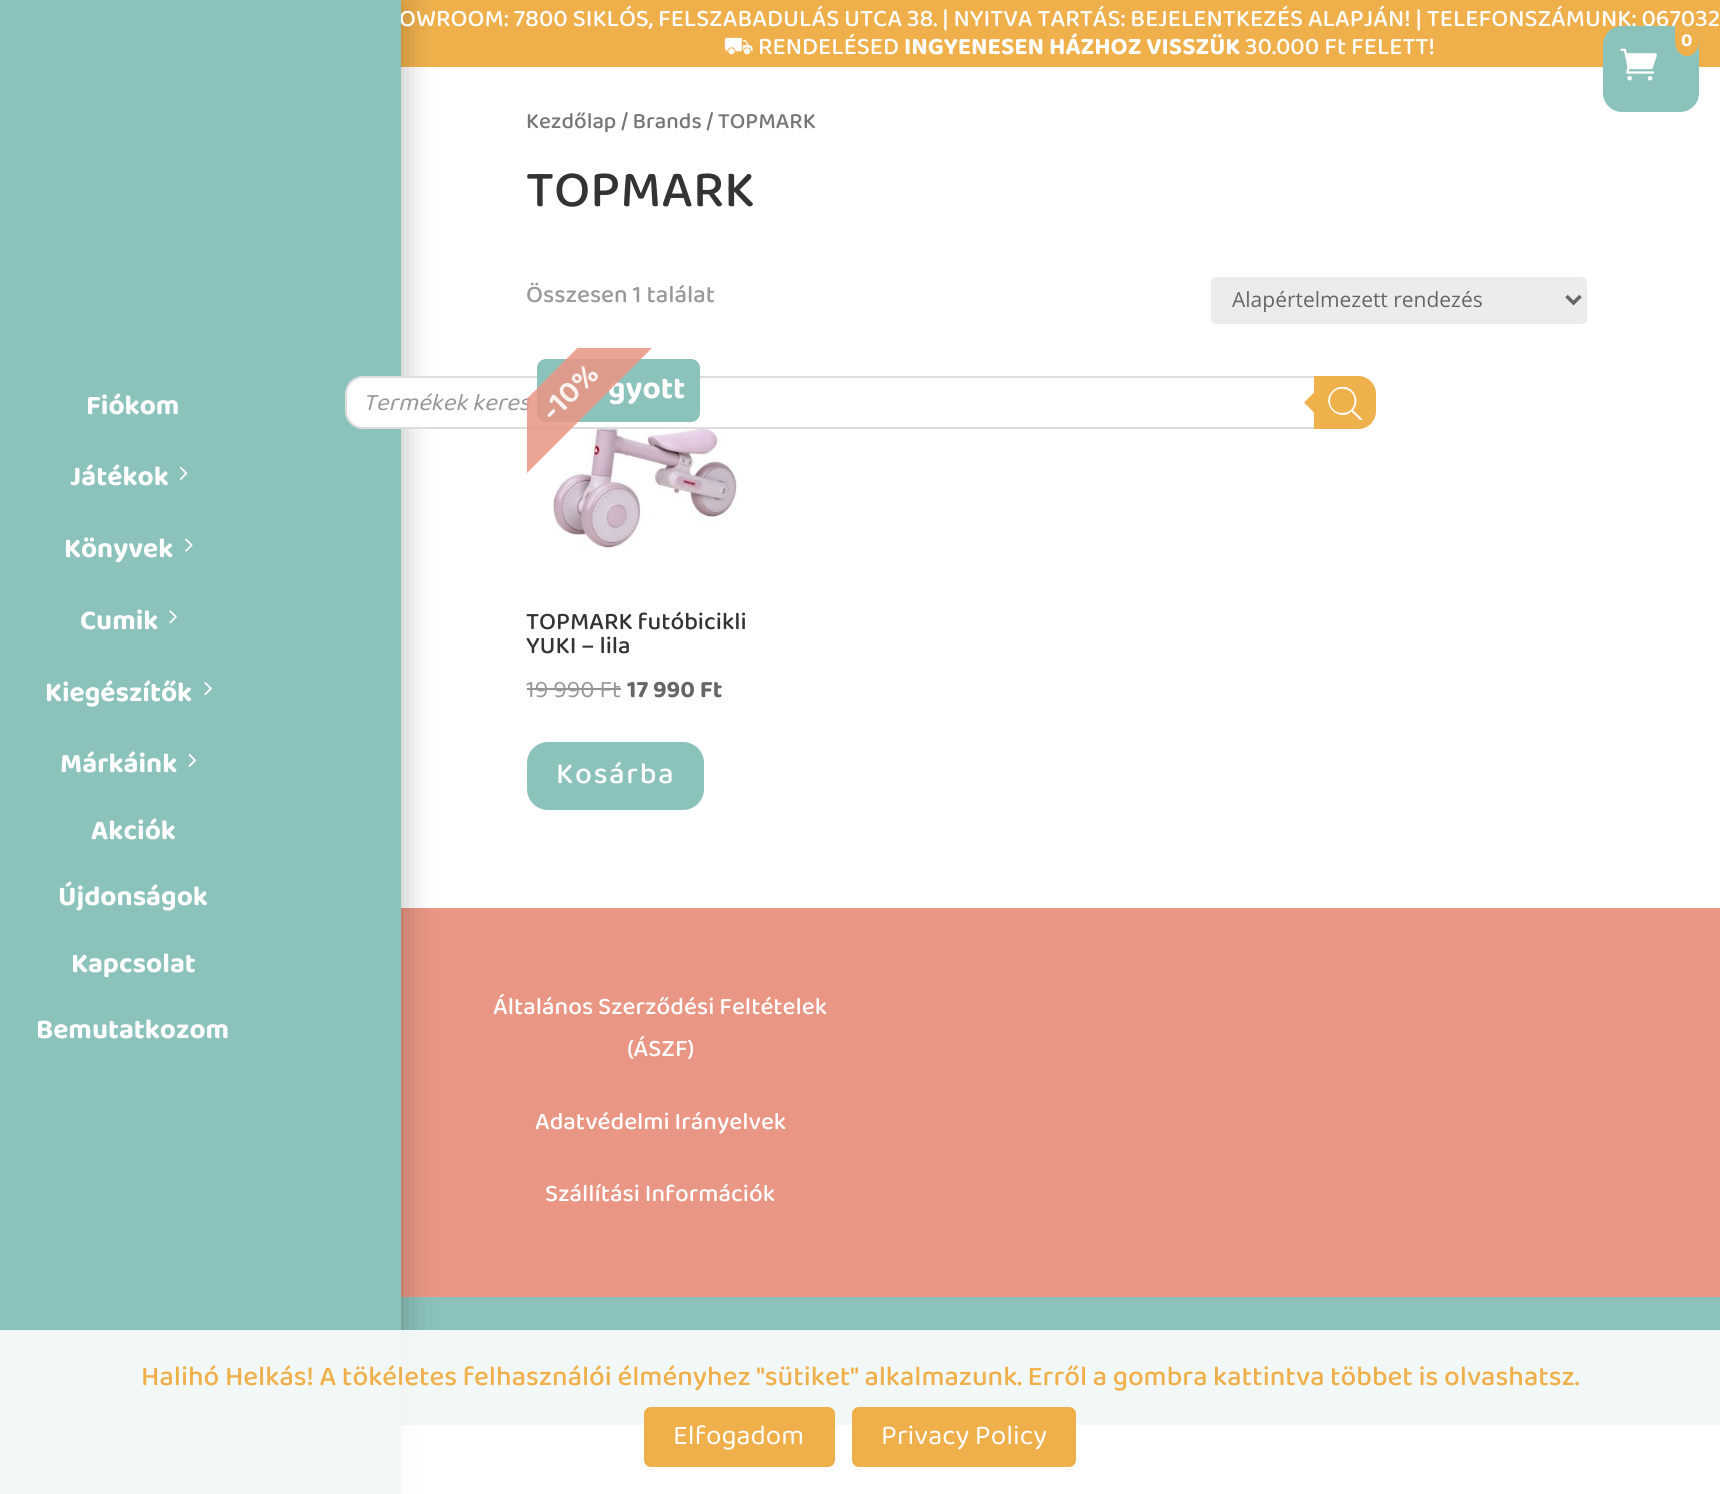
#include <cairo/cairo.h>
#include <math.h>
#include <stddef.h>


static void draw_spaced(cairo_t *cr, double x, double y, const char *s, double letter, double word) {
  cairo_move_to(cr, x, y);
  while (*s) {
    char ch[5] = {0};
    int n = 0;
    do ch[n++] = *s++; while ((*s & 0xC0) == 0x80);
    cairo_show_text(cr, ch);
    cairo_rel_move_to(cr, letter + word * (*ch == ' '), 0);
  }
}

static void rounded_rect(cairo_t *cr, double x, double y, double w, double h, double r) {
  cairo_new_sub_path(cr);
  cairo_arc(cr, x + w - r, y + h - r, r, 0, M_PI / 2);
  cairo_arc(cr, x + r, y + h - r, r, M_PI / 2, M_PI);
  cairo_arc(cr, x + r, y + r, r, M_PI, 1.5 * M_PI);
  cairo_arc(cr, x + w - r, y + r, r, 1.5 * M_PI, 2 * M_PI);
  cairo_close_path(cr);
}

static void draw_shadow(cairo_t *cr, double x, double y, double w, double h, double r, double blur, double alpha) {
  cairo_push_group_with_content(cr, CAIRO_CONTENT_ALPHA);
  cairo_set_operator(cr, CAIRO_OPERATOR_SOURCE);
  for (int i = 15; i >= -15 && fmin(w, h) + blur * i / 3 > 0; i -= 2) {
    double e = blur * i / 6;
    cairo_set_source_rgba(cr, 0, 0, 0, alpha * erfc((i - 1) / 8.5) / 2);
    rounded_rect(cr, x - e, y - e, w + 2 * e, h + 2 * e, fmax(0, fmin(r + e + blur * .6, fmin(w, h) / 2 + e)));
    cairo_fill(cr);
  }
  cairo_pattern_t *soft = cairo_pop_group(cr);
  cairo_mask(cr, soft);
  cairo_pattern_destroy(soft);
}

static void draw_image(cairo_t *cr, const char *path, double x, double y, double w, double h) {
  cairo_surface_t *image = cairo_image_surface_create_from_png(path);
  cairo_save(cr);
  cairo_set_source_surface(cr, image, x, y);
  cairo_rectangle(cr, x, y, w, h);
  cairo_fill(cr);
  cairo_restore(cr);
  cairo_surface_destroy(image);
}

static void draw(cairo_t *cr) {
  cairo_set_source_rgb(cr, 1, 1, 1);
  cairo_paint(cr);
  cairo_set_source_rgb(cr, 239 / 255.0, 176 / 255.0, 76 / 255.0);
  cairo_rectangle(cr, 401, 0, 1319, 67);
  cairo_fill(cr);
  cairo_set_source_rgb(cr, 233 / 255.0, 150 / 255.0, 132 / 255.0);
  cairo_rectangle(cr, 401, 908, 1319, 389);
  cairo_fill(cr);
  cairo_set_source_rgb(cr, 139 / 255.0, 194 / 255.0, 188 / 255.0);
  cairo_rectangle(cr, 401, 1297, 1319, 128);
  cairo_fill(cr);
  cairo_set_source_rgb(cr, 236 / 255.0, 236 / 255.0, 236 / 255.0);
  rounded_rect(cr, 1211, 277, 376, 47, 5);
  cairo_fill(cr);
  cairo_new_path(cr);
  cairo_move_to(cr, 1566.5, 296);
  cairo_line_to(cr, 1573.5, 303);
  cairo_line_to(cr, 1580.5, 296);
  cairo_set_source_rgb(cr, 102 / 255.0, 102 / 255.0, 102 / 255.0);
  cairo_set_line_width(cr, 3.5);
  cairo_stroke(cr);
  draw_image(cr, "images/1.png", 552, 429, 187, 119);
  cairo_set_source_rgb(cr, 139 / 255.0, 194 / 255.0, 188 / 255.0);
  rounded_rect(cr, 527, 742, 177, 68, 21);
  cairo_fill(cr);
  cairo_set_source_rgb(cr, 0, 0, 0);
  draw_shadow(cr, 0, 4, 401, 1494, 0, 16, 0.3);
  cairo_select_font_face(cr, "Baloo 2 Medium", CAIRO_FONT_SLANT_NORMAL, CAIRO_FONT_WEIGHT_NORMAL);
  cairo_set_font_size(cr, 24.5);
  cairo_set_source_rgb(cr, 1, 1, 1);
  cairo_move_to(cr, 399, 26);
  cairo_show_text(cr, "OWROOM: 7800 SIKLÓS, FELSZABADULÁS UTCA 38. | NYITVA TARTÁS: BEJELENTKEZÉS ALAPJÁN! | TELEFONSZÁMUNK: 067032");
  cairo_select_font_face(cr, "STIX Two Math", CAIRO_FONT_SLANT_NORMAL, CAIRO_FONT_WEIGHT_NORMAL);
  cairo_move_to(cr, 723, 54);
  cairo_show_text(cr, "⛟");
  cairo_select_font_face(cr, "Baloo 2 Medium", CAIRO_FONT_SLANT_NORMAL, CAIRO_FONT_WEIGHT_NORMAL);
  cairo_move_to(cr, 758, 54);
  cairo_show_text(cr, "RENDELÉSED");
  cairo_select_font_face(cr, "Baloo 2", CAIRO_FONT_SLANT_NORMAL, CAIRO_FONT_WEIGHT_BOLD);
  cairo_move_to(cr, 904, 54);
  cairo_show_text(cr, "INGYENESEN HÁZHOZ VISSZÜK");
  cairo_select_font_face(cr, "Baloo 2 Medium", CAIRO_FONT_SLANT_NORMAL, CAIRO_FONT_WEIGHT_NORMAL);
  cairo_move_to(cr, 1245, 54);
  cairo_show_text(cr, "30.000 Ft FELETT!");
  cairo_move_to(cr, 493, 1014);
  cairo_show_text(cr, "Általános Szerződési Feltételek");
  cairo_move_to(cr, 627, 1056);
  cairo_show_text(cr, "(ÁSZF)");
  cairo_move_to(cr, 535, 1129);
  cairo_show_text(cr, "Adatvédelmi Irányelvek");
  cairo_move_to(cr, 545, 1201);
  cairo_show_text(cr, "Szállítási Információk");
  cairo_set_font_size(cr, 22.5);
  cairo_set_source_rgb(cr, 118 / 255.0, 118 / 255.0, 118 / 255.0);
  cairo_move_to(cr, 526, 128);
  cairo_show_text(cr, "Kezdőlap / Brands / TOPMARK");
  cairo_set_font_size(cr, 52.5);
  cairo_set_source_rgb(cr, 51 / 255.0, 51 / 255.0, 51 / 255.0);
  cairo_move_to(cr, 526, 206);
  cairo_show_text(cr, "TOPMARK");
  cairo_set_font_size(cr, 24.5);
  cairo_set_source_rgb(cr, 153 / 255.0, 153 / 255.0, 153 / 255.0);
  cairo_move_to(cr, 526, 302);
  cairo_show_text(cr, "Összesen 1 találat");
  cairo_select_font_face(cr, "Open Sans", CAIRO_FONT_SLANT_NORMAL, CAIRO_FONT_WEIGHT_NORMAL);
  cairo_set_font_size(cr, 21);
  cairo_set_source_rgb(cr, 102 / 255.0, 102 / 255.0, 102 / 255.0);
  cairo_move_to(cr, 1232, 307);
  cairo_show_text(cr, "Alapértelmezett rendezés");
  cairo_select_font_face(cr, "Baloo 2 Medium", CAIRO_FONT_SLANT_NORMAL, CAIRO_FONT_WEIGHT_NORMAL);
  cairo_set_font_size(cr, 24.5);
  cairo_set_source_rgb(cr, 51 / 255.0, 51 / 255.0, 51 / 255.0);
  cairo_move_to(cr, 526, 629);
  cairo_show_text(cr, "TOPMARK futóbicikli");
  cairo_move_to(cr, 526, 653);
  cairo_show_text(cr, "YUKI – lila");
  cairo_select_font_face(cr, "Baloo 2", CAIRO_FONT_SLANT_NORMAL, CAIRO_FONT_WEIGHT_NORMAL);
  cairo_set_source_rgb(cr, 153 / 255.0, 153 / 255.0, 153 / 255.0);
  cairo_move_to(cr, 526, 697);
  cairo_show_text(cr, "19 990 Ft");
  cairo_set_source_rgb(cr, 148 / 255.0, 148 / 255.0, 148 / 255.0);
  cairo_rectangle(cr, 527, 688, 94, 2);
  cairo_fill(cr);
  cairo_select_font_face(cr, "Baloo 2", CAIRO_FONT_SLANT_NORMAL, CAIRO_FONT_WEIGHT_BOLD);
  cairo_set_source_rgb(cr, 102 / 255.0, 102 / 255.0, 102 / 255.0);
  cairo_move_to(cr, 627, 697);
  cairo_show_text(cr, "17 990 Ft");
  cairo_select_font_face(cr, "Baloo 2 Medium", CAIRO_FONT_SLANT_NORMAL, CAIRO_FONT_WEIGHT_NORMAL);
  cairo_set_font_size(cr, 30);
  cairo_set_source_rgb(cr, 1, 1, 1);
  draw_spaced(cr, 556, 783, "Kosárba", 1.75, 0);
  cairo_set_source_rgb(cr, 139 / 255.0, 194 / 255.0, 188 / 255.0);
  cairo_rectangle(cr, 0, 0, 401, 1494);
  cairo_fill(cr);
  rounded_rect(cr, 1603, 26, 96, 86, 19);
  cairo_fill(cr);
  cairo_set_source_rgb(cr, 239 / 255.0, 176 / 255.0, 76 / 255.0);
  cairo_new_path(cr);
  cairo_move_to(cr, 1676, 26);
  cairo_curve_to(cr, 1675.5, 26, 1675, 27, 1675, 27.5);
  cairo_line_to(cr, 1675, 41);
  cairo_curve_to(cr, 1675, 49.5, 1680, 56, 1687, 56);
  cairo_curve_to(cr, 1693.5, 56, 1698, 50.5, 1699, 43);
  cairo_curve_to(cr, 1698, 33.5, 1690, 26, 1680, 26);
  cairo_close_path(cr);
  cairo_fill(cr);
  cairo_select_font_face(cr, "Baloo 2", CAIRO_FONT_SLANT_NORMAL, CAIRO_FONT_WEIGHT_BOLD);
  cairo_set_font_size(cr, 19);
  cairo_set_source_rgb(cr, 1, 1, 1);
  cairo_move_to(cr, 1681, 46);
  cairo_show_text(cr, "0");
  draw_image(cr, "images/2.png", 1620, 48, 37, 33);
  cairo_set_font_size(cr, 28);
  cairo_move_to(cr, 86, 414);
  cairo_show_text(cr, "Fiókom");
  cairo_move_to(cr, 70, 485);
  cairo_show_text(cr, "Játékok");
  draw_image(cr, "images/3.png", 179, 466, 9, 14);
  cairo_move_to(cr, 64, 557);
  cairo_show_text(cr, "Könyvek");
  draw_image(cr, "images/4.png", 185, 538, 8, 14);
  cairo_move_to(cr, 80, 629);
  cairo_show_text(cr, "Cumik");
  draw_image(cr, "images/5.png", 169, 610, 8, 14);
  cairo_move_to(cr, 45, 701);
  cairo_show_text(cr, "Kiegészítők");
  draw_image(cr, "images/6.png", 204, 682, 8, 14);
  cairo_move_to(cr, 60, 772);
  cairo_show_text(cr, "Márkáink");
  draw_image(cr, "images/7.png", 188, 753, 8, 14);
  cairo_move_to(cr, 91, 839);
  cairo_show_text(cr, "Akciók");
  cairo_move_to(cr, 58, 905);
  cairo_show_text(cr, "Újdonságok");
  cairo_move_to(cr, 71, 972);
  cairo_show_text(cr, "Kapcsolat");
  cairo_move_to(cr, 36, 1038);
  cairo_show_text(cr, "Bemutatkozom");
  rounded_rect(cr, 346, 377, 1029, 51, 17);
  cairo_fill_preserve(cr);
  cairo_set_source_rgb(cr, 221 / 255.0, 221 / 255.0, 221 / 255.0);
  cairo_set_line_width(cr, 2);
  cairo_stroke(cr);
  cairo_set_source_rgb(cr, 139 / 255.0, 194 / 255.0, 188 / 255.0);
  rounded_rect(cr, 537, 359, 163, 63, 9);
  cairo_fill(cr);
  cairo_set_font_size(cr, 31.5);
  cairo_set_source_rgb(cr, 1, 1, 1);
  cairo_move_to(cr, 608, 398);
  cairo_show_text(cr, "gyott");
  cairo_select_font_face(cr, "Baloo 2", CAIRO_FONT_SLANT_ITALIC, CAIRO_FONT_WEIGHT_NORMAL);
  cairo_set_font_size(cr, 24.5);
  cairo_set_source_rgb(cr, 153 / 255.0, 153 / 255.0, 153 / 255.0);
  cairo_move_to(cr, 363, 410);
  cairo_show_text(cr, "Termékek keres");
  cairo_save(cr);
  cairo_rectangle(cr, 527, 348, 131, 132);
  cairo_clip(cr);
  cairo_set_source_rgba(cr, 233 / 255.0, 150 / 255.0, 132 / 255.0, 0.87);
  cairo_new_path(cr);
  cairo_move_to(cr, 482, 444);
  cairo_line_to(cr, 621, 304);
  cairo_line_to(cr, 658, 342);
  cairo_line_to(cr, 519, 481);
  cairo_close_path(cr);
  cairo_fill(cr);
  cairo_restore(cr);
  cairo_select_font_face(cr, "Baloo 2 SemiBold", CAIRO_FONT_SLANT_NORMAL, CAIRO_FONT_WEIGHT_NORMAL);
  cairo_set_font_size(cr, 31.5);
  cairo_set_source_rgb(cr, 251 / 255.0, 242 / 255.0, 240 / 255.0);
  cairo_save(cr);
  cairo_translate(cr, 583, 393);
  cairo_rotate(cr, -45 * M_PI / 180);
  cairo_move_to(cr, 0, 0);
  cairo_show_text(cr, "%");
  cairo_restore(cr);
  cairo_save(cr);
  cairo_translate(cr, 561, 414);
  cairo_rotate(cr, -45 * M_PI / 180);
  cairo_move_to(cr, 0, 0);
  cairo_show_text(cr, "10");
  cairo_restore(cr);
  cairo_set_source_rgb(cr, 240 / 255.0, 247 / 255.0, 246 / 255.0);
  cairo_save(cr);
  cairo_translate(cr, 553, 423);
  cairo_rotate(cr, -45 * M_PI / 180);
  cairo_move_to(cr, 0, 0);
  cairo_show_text(cr, "-");
  cairo_restore(cr);
  cairo_set_source_rgb(cr, 239 / 255.0, 177 / 255.0, 76 / 255.0);
  cairo_new_path(cr);
  cairo_move_to(cr, 1314, 376);
  cairo_line_to(cr, 1358, 376);
  cairo_curve_to(cr, 1368, 376, 1376, 384, 1376, 394);
  cairo_line_to(cr, 1376, 411);
  cairo_curve_to(cr, 1376, 421, 1368, 429, 1358, 429);
  cairo_line_to(cr, 1314, 429);
  cairo_close_path(cr);
  cairo_fill(cr);
  cairo_new_path(cr);
  cairo_move_to(cr, 1318, 388.5);
  cairo_line_to(cr, 1318, 416.5);
  cairo_line_to(cr, 1304, 402.5);
  cairo_close_path(cr);
  cairo_fill(cr);
  cairo_save(cr);
  cairo_rectangle(cr, 1328, 387, 35, 33);
  cairo_clip(cr);
  cairo_set_source_rgb(cr, 1, 1, 1);
  cairo_new_path(cr);
  cairo_move_to(cr, 1362.5, 419.5);
  cairo_line_to(cr, 1353, 410);
  cairo_curve_to(cr, 1364.5, 396.5, 1345.5, 378, 1332.5, 391);
  cairo_curve_to(cr, 1319.5, 403.5, 1338.5, 423, 1351.5, 411.5);
  cairo_line_to(cr, 1361, 421);
  cairo_close_path(cr);
  cairo_move_to(cr, 1330, 401);
  cairo_curve_to(cr, 1330, 384.5, 1354.5, 384.5, 1354.5, 401);
  cairo_curve_to(cr, 1354.5, 417, 1330, 417, 1330, 401);
  cairo_close_path(cr);
  cairo_fill(cr);
  cairo_restore(cr);
  cairo_set_source_rgba(cr, 1, 1, 1, 0.89);
  cairo_rectangle(cr, 0, 1330, 1720, 164);
  cairo_fill(cr);
  cairo_select_font_face(cr, "Baloo 2 Medium", CAIRO_FONT_SLANT_NORMAL, CAIRO_FONT_WEIGHT_NORMAL);
  cairo_set_font_size(cr, 28);
  cairo_set_source_rgb(cr, 239 / 255.0, 176 / 255.0, 76 / 255.0);
  cairo_move_to(cr, 141, 1385);
  cairo_show_text(cr, "Halihó Helkás! A tökéletes felhasználói élményhez \"sütiket\" alkalmazunk. Erről a gombra kattintva többet is olvashatsz.");
  rounded_rect(cr, 644, 1407, 191, 60, 7);
  cairo_fill(cr);
  cairo_select_font_face(cr, "Baloo 2", CAIRO_FONT_SLANT_NORMAL, CAIRO_FONT_WEIGHT_NORMAL);
  cairo_set_source_rgb(cr, 1, 1, 1);
  cairo_move_to(cr, 673, 1444);
  cairo_show_text(cr, "Elfogadom");
  cairo_set_source_rgb(cr, 239 / 255.0, 176 / 255.0, 76 / 255.0);
  rounded_rect(cr, 852, 1407, 224, 60, 7);
  cairo_fill(cr);
  cairo_set_source_rgb(cr, 1, 1, 1);
  cairo_move_to(cr, 881, 1444);
  cairo_show_text(cr, "Privacy Policy");
}

int main(void) {
  cairo_surface_t *surface = cairo_image_surface_create(CAIRO_FORMAT_RGB24, 1720, 1494);
  cairo_t *cr = cairo_create(surface);
  cairo_font_options_t *options = cairo_font_options_create();
  cairo_font_options_set_hint_metrics(options, CAIRO_HINT_METRICS_OFF);
  cairo_font_options_set_hint_style(options, CAIRO_HINT_STYLE_NONE);
  cairo_set_font_options(cr, options);
  cairo_set_miter_limit(cr, 4);
  draw(cr);
  cairo_surface_write_to_png(surface, "out.png");
  cairo_font_options_destroy(options);
  cairo_destroy(cr);
  cairo_surface_destroy(surface);
  return 0;
}
